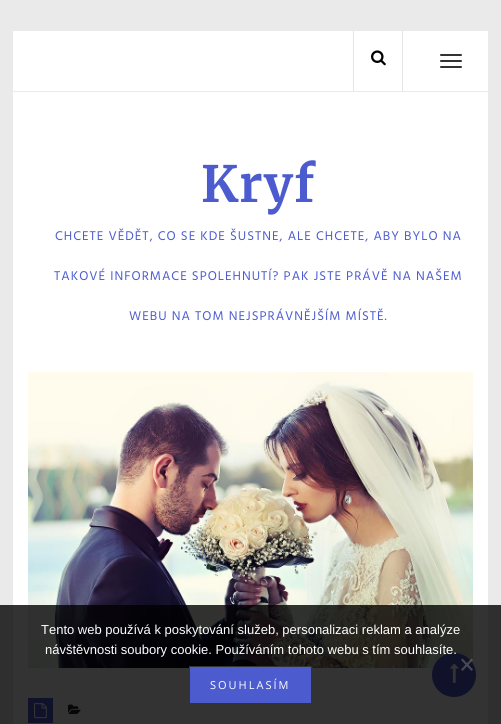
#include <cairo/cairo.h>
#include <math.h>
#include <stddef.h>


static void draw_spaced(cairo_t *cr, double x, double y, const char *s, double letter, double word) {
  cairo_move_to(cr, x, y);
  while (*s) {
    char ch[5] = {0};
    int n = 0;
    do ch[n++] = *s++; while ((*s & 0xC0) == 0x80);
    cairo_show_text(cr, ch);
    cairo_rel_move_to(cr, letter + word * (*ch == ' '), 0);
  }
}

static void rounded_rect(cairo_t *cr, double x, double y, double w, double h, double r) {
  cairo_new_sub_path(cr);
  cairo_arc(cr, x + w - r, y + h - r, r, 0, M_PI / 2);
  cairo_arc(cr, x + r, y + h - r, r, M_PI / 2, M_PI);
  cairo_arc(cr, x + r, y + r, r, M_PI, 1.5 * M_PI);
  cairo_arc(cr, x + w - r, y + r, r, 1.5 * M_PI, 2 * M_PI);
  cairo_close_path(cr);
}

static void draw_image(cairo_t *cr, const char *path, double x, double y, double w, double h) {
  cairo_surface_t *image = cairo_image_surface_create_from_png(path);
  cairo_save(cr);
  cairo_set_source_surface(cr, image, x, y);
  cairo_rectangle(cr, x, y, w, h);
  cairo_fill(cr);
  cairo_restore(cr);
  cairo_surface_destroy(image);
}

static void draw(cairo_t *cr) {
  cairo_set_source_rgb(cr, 234 / 255.0, 234 / 255.0, 234 / 255.0);
  cairo_paint(cr);
  cairo_set_source_rgb(cr, 1, 1, 1);
  cairo_rectangle(cr, 13, 31, 475, 693);
  cairo_fill(cr);
  cairo_set_source_rgb(cr, 234 / 255.0, 234 / 255.0, 234 / 255.0);
  cairo_rectangle(cr, 13, 91, 475, 1);
  cairo_fill(cr);
  cairo_set_source_rgb(cr, 229 / 255.0, 229 / 255.0, 229 / 255.0);
  cairo_rectangle(cr, 402, 31, 1, 60);
  cairo_fill(cr);
  cairo_rectangle(cr, 353, 31, 1, 60);
  cairo_fill(cr);
  draw_image(cr, "images/1.png", 371, 50, 15, 16);
  cairo_set_source_rgb(cr, 51 / 255.0, 51 / 255.0, 51 / 255.0);
  rounded_rect(cr, 440, 54, 22, 2, 1);
  cairo_fill(cr);
  rounded_rect(cr, 440, 60, 22, 2, 1);
  cairo_fill(cr);
  rounded_rect(cr, 440, 66, 22, 2, 1);
  cairo_fill(cr);
  draw_image(cr, "images/2.png", 28, 372, 445, 296);
  cairo_set_source_rgb(cr, 76 / 255.0, 92 / 255.0, 207 / 255.0);
  cairo_rectangle(cr, 28, 698, 25, 25);
  cairo_fill(cr);
  draw_image(cr, "images/3.png", 34, 703, 13, 16);
  draw_image(cr, "images/4.png", 68, 704, 13, 10);
  cairo_arc(cr, 454, 675, 22, 0, 2 * M_PI);
  cairo_fill(cr);
  draw_image(cr, "images/5.png", 450, 663, 9, 20);
  cairo_set_source_rgba(cr, 0, 0, 0, 0.8);
  cairo_rectangle(cr, 0, 605, 501, 119);
  cairo_fill(cr);
  cairo_set_source_rgba(cr, 128 / 255.0, 128 / 255.0, 128 / 255.0, 0.5);
  cairo_new_path(cr);
  cairo_move_to(cr, 471.5, 658.5);
  cairo_line_to(cr, 473, 660);
  cairo_line_to(cr, 462.5, 671);
  cairo_line_to(cr, 461, 669.5);
  cairo_close_path(cr);
  cairo_fill(cr);
  cairo_set_source_rgb(cr, 72 / 255.0, 73 / 255.0, 85 / 255.0);
  cairo_new_path(cr);
  cairo_move_to(cr, 461, 660);
  cairo_line_to(cr, 462.5, 658.5);
  cairo_line_to(cr, 473, 669.5);
  cairo_line_to(cr, 471.5, 671);
  cairo_close_path(cr);
  cairo_fill(cr);
  cairo_set_source_rgb(cr, 76 / 255.0, 92 / 255.0, 207 / 255.0);
  cairo_rectangle(cr, 189.5, 666.5, 122, 37);
  cairo_fill_preserve(cr);
  cairo_set_source_rgb(cr, 51 / 255.0, 51 / 255.0, 51 / 255.0);
  cairo_set_line_width(cr, 1);
  cairo_stroke(cr);
  cairo_select_font_face(cr, "Merriweather", CAIRO_FONT_SLANT_NORMAL, CAIRO_FONT_WEIGHT_BOLD);
  cairo_set_font_size(cr, 50);
  cairo_set_source_rgb(cr, 76 / 255.0, 92 / 255.0, 207 / 255.0);
  draw_spaced(cr, 201, 202, "Kryf", 1, 0);
  cairo_select_font_face(cr, "Hind", CAIRO_FONT_SLANT_NORMAL, CAIRO_FONT_WEIGHT_NORMAL);
  cairo_set_font_size(cr, 13);
  draw_spaced(cr, 55, 240, "CHCETE VĚDĚT, CO SE KDE ŠUSTNE, ALE CHCETE, ABY BYLO NA", 1, 0);
  draw_spaced(cr, 54, 280, "TAKOVÉ INFORMACE SPOLEHNUTÍ? PAK JSTE PRÁVĚ NA NAŠEM", 1, 0);
  draw_spaced(cr, 129, 320, "WEBU NA TOM NEJSPRÁVNĚJŠÍM MÍSTĚ.", 1, 0);
  cairo_select_font_face(cr, "Liberation Sans", CAIRO_FONT_SLANT_NORMAL, CAIRO_FONT_WEIGHT_NORMAL);
  cairo_set_source_rgb(cr, 1, 1, 1);
  cairo_move_to(cr, 41, 634);
  cairo_show_text(cr, "Tento web používá k poskytování služeb, personalizaci reklam a analýze");
  cairo_move_to(cr, 45, 654);
  cairo_show_text(cr, "návštěvnosti soubory cookie. Používáním tohoto webu s tím souhlasíte.");
  cairo_select_font_face(cr, "Open Sans", CAIRO_FONT_SLANT_NORMAL, CAIRO_FONT_WEIGHT_NORMAL);
  cairo_set_font_size(cr, 11);
  draw_spaced(cr, 210, 689, "SOUHLASÍM", 2, 0);
}

int main(void) {
  cairo_surface_t *surface = cairo_image_surface_create(CAIRO_FORMAT_RGB24, 501, 724);
  cairo_t *cr = cairo_create(surface);
  cairo_font_options_t *options = cairo_font_options_create();
  cairo_font_options_set_hint_metrics(options, CAIRO_HINT_METRICS_OFF);
  cairo_font_options_set_hint_style(options, CAIRO_HINT_STYLE_NONE);
  cairo_set_font_options(cr, options);
  cairo_set_miter_limit(cr, 4);
  draw(cr);
  cairo_surface_write_to_png(surface, "out.png");
  cairo_font_options_destroy(options);
  cairo_destroy(cr);
  cairo_surface_destroy(surface);
  return 0;
}
